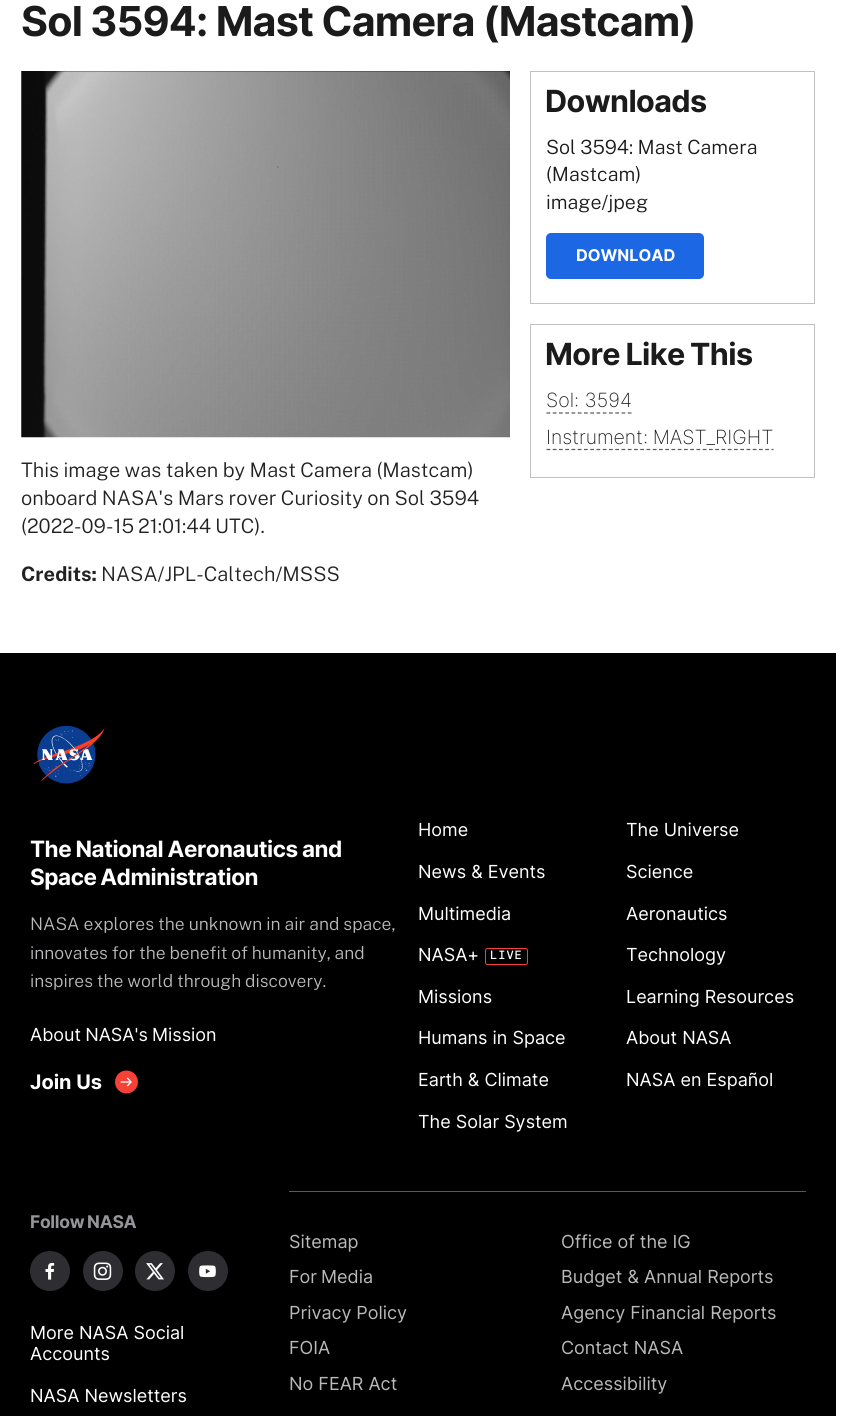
#include <cairo/cairo.h>
#include <math.h>
#include <stddef.h>


static void draw_spaced(cairo_t *cr, double x, double y, const char *s, double letter, double word) {
  cairo_move_to(cr, x, y);
  while (*s) {
    char ch[5] = {0};
    int n = 0;
    do ch[n++] = *s++; while ((*s & 0xC0) == 0x80);
    cairo_show_text(cr, ch);
    cairo_rel_move_to(cr, letter + word * (*ch == ' '), 0);
  }
}

static void rounded_rect(cairo_t *cr, double x, double y, double w, double h, double r) {
  cairo_new_sub_path(cr);
  cairo_arc(cr, x + w - r, y + h - r, r, 0, M_PI / 2);
  cairo_arc(cr, x + r, y + h - r, r, M_PI / 2, M_PI);
  cairo_arc(cr, x + r, y + r, r, M_PI, 1.5 * M_PI);
  cairo_arc(cr, x + w - r, y + r, r, 1.5 * M_PI, 2 * M_PI);
  cairo_close_path(cr);
}

static void draw_image(cairo_t *cr, const char *path, double x, double y, double w, double h) {
  cairo_surface_t *image = cairo_image_surface_create_from_png(path);
  cairo_save(cr);
  cairo_set_source_surface(cr, image, x, y);
  cairo_rectangle(cr, x, y, w, h);
  cairo_fill(cr);
  cairo_restore(cr);
  cairo_surface_destroy(image);
}

static void draw(cairo_t *cr) {
  cairo_set_source_rgb(cr, 1, 1, 1);
  cairo_paint(cr);
  cairo_rectangle(cr, 530.5, 71.5, 284, 232);
  cairo_set_source_rgb(cr, 193 / 255.0, 193 / 255.0, 193 / 255.0);
  cairo_set_line_width(cr, 1);
  cairo_stroke(cr);
  cairo_set_source_rgb(cr, 28 / 255.0, 103 / 255.0, 227 / 255.0);
  rounded_rect(cr, 546, 233, 158, 46, 5);
  cairo_fill(cr);
  cairo_rectangle(cr, 530.5, 324.5, 284, 153);
  cairo_set_source_rgb(cr, 193 / 255.0, 193 / 255.0, 193 / 255.0);
  cairo_stroke(cr);
  cairo_new_path(cr);
  cairo_move_to(cr, 546.5, 413);
  cairo_line_to(cr, 632.5, 413);
  cairo_set_source_rgb(cr, 88 / 255.0, 88 / 255.0, 91 / 255.0);
  cairo_set_line_width(cr, 1.2);
  cairo_set_dash(cr, (double[]){3.75, 2.5}, 2, 0);
  cairo_stroke(cr);
  cairo_new_path(cr);
  cairo_move_to(cr, 546.5, 449.5);
  cairo_line_to(cr, 773.5, 449.5);
  cairo_stroke(cr);
  draw_image(cr, "images/1.png", 21, 71, 489, 367);
  cairo_set_source_rgb(cr, 0, 0, 0);
  cairo_rectangle(cr, 0, 653, 836, 763);
  cairo_fill(cr);
  draw_image(cr, "images/2.png", 33, 725, 72, 59);
  draw_image(cr, "images/3.png", 115, 1070, 23, 24);
  rounded_rect(cr, 485.5, 948.5, 42, 16, 2);
  cairo_set_source_rgb(cr, 246 / 255.0, 65 / 255.0, 55 / 255.0);
  cairo_set_line_width(cr, 1);
  cairo_set_dash(cr, NULL, 0, 0);
  cairo_stroke(cr);
  cairo_set_source_rgb(cr, 46 / 255.0, 46 / 255.0, 50 / 255.0);
  cairo_arc(cr, 50, 1271, 20, 0, 2 * M_PI);
  cairo_fill(cr);
  draw_image(cr, "images/4.png", 45, 1262, 10, 18);
  cairo_arc(cr, 103, 1271, 20, 0, 2 * M_PI);
  cairo_fill(cr);
  draw_image(cr, "images/5.png", 93, 1262, 19, 18);
  cairo_arc(cr, 155, 1271, 20, 0, 2 * M_PI);
  cairo_fill(cr);
  draw_image(cr, "images/6.png", 146, 1263, 18, 17);
  cairo_arc(cr, 208, 1271, 20, 0, 2 * M_PI);
  cairo_fill(cr);
  draw_image(cr, "images/7.png", 199, 1265, 17, 13);
  cairo_set_source_rgb(cr, 88 / 255.0, 88 / 255.0, 91 / 255.0);
  cairo_rectangle(cr, 289, 1191, 517, 1);
  cairo_fill(cr);
  cairo_select_font_face(cr, "Inter", CAIRO_FONT_SLANT_NORMAL, CAIRO_FONT_WEIGHT_BOLD);
  cairo_set_font_size(cr, 41.2);
  cairo_set_source_rgb(cr, 27 / 255.0, 27 / 255.0, 27 / 255.0);
  draw_spaced(cr, 21, 36, "Sol 3594: Mast Camera (Mastcam)", -0.8, -0.5);
  cairo_set_font_size(cr, 30.5);
  draw_spaced(cr, 545, 112, "Downloads", -0.6, 0);
  cairo_select_font_face(cr, "Public Sans Light", CAIRO_FONT_SLANT_NORMAL, CAIRO_FONT_WEIGHT_NORMAL);
  cairo_set_font_size(cr, 19.6);
  draw_spaced(cr, 546, 154, "Sol 3594: Mast Camera", 0, -0.5);
  cairo_move_to(cr, 546, 181);
  cairo_show_text(cr, "(Mastcam)");
  cairo_move_to(cr, 546, 209);
  cairo_show_text(cr, "image/jpeg");
  cairo_select_font_face(cr, "Inter", CAIRO_FONT_SLANT_NORMAL, CAIRO_FONT_WEIGHT_BOLD);
  cairo_set_font_size(cr, 16.25);
  cairo_set_source_rgb(cr, 1, 1, 1);
  cairo_move_to(cr, 576, 261);
  cairo_show_text(cr, "DOWNLOAD");
  cairo_set_font_size(cr, 30.5);
  cairo_set_source_rgb(cr, 27 / 255.0, 27 / 255.0, 27 / 255.0);
  draw_spaced(cr, 545, 365, "More Like This", -0.6, -1);
  cairo_select_font_face(cr, "Inter ExtraLight", CAIRO_FONT_SLANT_NORMAL, CAIRO_FONT_WEIGHT_NORMAL);
  cairo_set_font_size(cr, 19.6);
  cairo_move_to(cr, 546, 407);
  cairo_show_text(cr, "Sol: 3594");
  draw_spaced(cr, 546, 444, "Instrument: MAST_RIGHT", 0, -1);
  cairo_select_font_face(cr, "Public Sans Light", CAIRO_FONT_SLANT_NORMAL, CAIRO_FONT_WEIGHT_NORMAL);
  cairo_set_font_size(cr, 20);
  cairo_set_source_rgb(cr, 34 / 255.0, 34 / 255.0, 34 / 255.0);
  draw_spaced(cr, 21, 477, "This image was taken by Mast Camera (Mastcam)", 0, -0.5);
  draw_spaced(cr, 21, 505, "onboard NASA's Mars rover Curiosity on Sol 3594", 0, -0.5);
  draw_spaced(cr, 21, 533, "(2022-09-15 21:01:44 UTC).", 0, -1);
  cairo_select_font_face(cr, "Public Sans", CAIRO_FONT_SLANT_NORMAL, CAIRO_FONT_WEIGHT_BOLD);
  cairo_move_to(cr, 21, 581);
  cairo_show_text(cr, "Credits:");
  cairo_select_font_face(cr, "Public Sans Light", CAIRO_FONT_SLANT_NORMAL, CAIRO_FONT_WEIGHT_NORMAL);
  cairo_move_to(cr, 101, 581);
  cairo_show_text(cr, "NASA/JPL-Caltech/MSSS");
  cairo_select_font_face(cr, "Inter", CAIRO_FONT_SLANT_NORMAL, CAIRO_FONT_WEIGHT_BOLD);
  cairo_set_font_size(cr, 22.5);
  cairo_set_source_rgb(cr, 1, 1, 1);
  draw_spaced(cr, 30, 857, "The National Aeronautics and", -0.45, -0.5);
  draw_spaced(cr, 30, 885, "Space Administration", -0.45, -1);
  cairo_select_font_face(cr, "Public Sans Light", CAIRO_FONT_SLANT_NORMAL, CAIRO_FONT_WEIGHT_NORMAL);
  cairo_set_font_size(cr, 17.5);
  cairo_set_source_rgb(cr, 185 / 255.0, 185 / 255.0, 187 / 255.0);
  draw_spaced(cr, 30, 930, "NASA explores the unknown in air and space,", 0, -0.25);
  draw_spaced(cr, 30, 959, "innovates for the benefit of humanity, and", 0, -0.5);
  draw_spaced(cr, 30, 987, "inspires the world through discovery.", 0, -0.5);
  cairo_select_font_face(cr, "Inter", CAIRO_FONT_SLANT_NORMAL, CAIRO_FONT_WEIGHT_NORMAL);
  cairo_set_font_size(cr, 18);
  cairo_set_source_rgb(cr, 1, 1, 1);
  draw_spaced(cr, 30, 1041, "About NASA's Mission", 0, -1);
  cairo_select_font_face(cr, "Inter", CAIRO_FONT_SLANT_NORMAL, CAIRO_FONT_WEIGHT_BOLD);
  cairo_set_font_size(cr, 20);
  cairo_move_to(cr, 30, 1089);
  cairo_show_text(cr, "Join Us");
  cairo_select_font_face(cr, "Inter", CAIRO_FONT_SLANT_NORMAL, CAIRO_FONT_WEIGHT_NORMAL);
  cairo_set_font_size(cr, 18);
  cairo_move_to(cr, 418, 836);
  cairo_show_text(cr, "Home");
  cairo_move_to(cr, 626, 836);
  cairo_show_text(cr, "The Universe");
  cairo_move_to(cr, 418, 878);
  cairo_show_text(cr, "News & Events");
  cairo_move_to(cr, 626, 878);
  cairo_show_text(cr, "Science");
  cairo_move_to(cr, 418, 920);
  cairo_show_text(cr, "Multimedia");
  cairo_move_to(cr, 626, 920);
  cairo_show_text(cr, "Aeronautics");
  cairo_move_to(cr, 418, 961);
  cairo_show_text(cr, "NASA+");
  cairo_select_font_face(cr, "DM Mono Medium", CAIRO_FONT_SLANT_NORMAL, CAIRO_FONT_WEIGHT_NORMAL);
  cairo_set_font_size(cr, 12);
  draw_spaced(cr, 490, 959, "LIVE", 1, 0);
  cairo_select_font_face(cr, "Inter", CAIRO_FONT_SLANT_NORMAL, CAIRO_FONT_WEIGHT_NORMAL);
  cairo_set_font_size(cr, 18);
  cairo_move_to(cr, 626, 961);
  cairo_show_text(cr, "Technology");
  cairo_move_to(cr, 418, 1003);
  cairo_show_text(cr, "Missions");
  cairo_move_to(cr, 626, 1003);
  cairo_show_text(cr, "Learning Resources");
  cairo_move_to(cr, 418, 1044);
  cairo_show_text(cr, "Humans in Space");
  cairo_move_to(cr, 626, 1044);
  cairo_show_text(cr, "About NASA");
  cairo_move_to(cr, 418, 1086);
  cairo_show_text(cr, "Earth & Climate");
  cairo_move_to(cr, 626, 1086);
  cairo_show_text(cr, "NASA en Español");
  cairo_move_to(cr, 418, 1128);
  cairo_show_text(cr, "The Solar System");
  cairo_select_font_face(cr, "Inter", CAIRO_FONT_SLANT_NORMAL, CAIRO_FONT_WEIGHT_BOLD);
  cairo_set_font_size(cr, 17.5);
  cairo_set_source_rgb(cr, 149 / 255.0, 149 / 255.0, 153 / 255.0);
  draw_spaced(cr, 30, 1228, "Follow NASA", -0.3, -1);
  cairo_select_font_face(cr, "Inter", CAIRO_FONT_SLANT_NORMAL, CAIRO_FONT_WEIGHT_NORMAL);
  cairo_set_font_size(cr, 18);
  cairo_set_source_rgb(cr, 1, 1, 1);
  cairo_move_to(cr, 30, 1339);
  cairo_show_text(cr, "More NASA Social");
  cairo_move_to(cr, 30, 1360);
  cairo_show_text(cr, "Accounts");
  cairo_move_to(cr, 30, 1402);
  cairo_show_text(cr, "NASA Newsletters");
  cairo_set_source_rgb(cr, 185 / 255.0, 185 / 255.0, 187 / 255.0);
  cairo_move_to(cr, 289, 1248);
  cairo_show_text(cr, "Sitemap");
  cairo_move_to(cr, 561, 1248);
  cairo_show_text(cr, "Office of the IG");
  draw_spaced(cr, 289, 1283, "For Media", 0, -1);
  cairo_move_to(cr, 561, 1283);
  cairo_show_text(cr, "Budget & Annual Reports");
  draw_spaced(cr, 289, 1319, "Privacy Policy", 0, -0.5);
  cairo_move_to(cr, 561, 1319);
  cairo_show_text(cr, "Agency Financial Reports");
  cairo_move_to(cr, 289, 1354);
  cairo_show_text(cr, "FOIA");
  cairo_move_to(cr, 561, 1354);
  cairo_show_text(cr, "Contact NASA");
  cairo_move_to(cr, 289, 1390);
  cairo_show_text(cr, "No FEAR Act");
  cairo_move_to(cr, 561, 1390);
  cairo_show_text(cr, "Accessibility");
}

int main(void) {
  cairo_surface_t *surface = cairo_image_surface_create(CAIRO_FORMAT_RGB24, 855, 1416);
  cairo_t *cr = cairo_create(surface);
  cairo_font_options_t *options = cairo_font_options_create();
  cairo_font_options_set_hint_metrics(options, CAIRO_HINT_METRICS_OFF);
  cairo_font_options_set_hint_style(options, CAIRO_HINT_STYLE_NONE);
  cairo_set_font_options(cr, options);
  cairo_set_miter_limit(cr, 4);
  draw(cr);
  cairo_surface_write_to_png(surface, "out.png");
  cairo_font_options_destroy(options);
  cairo_destroy(cr);
  cairo_surface_destroy(surface);
  return 0;
}
